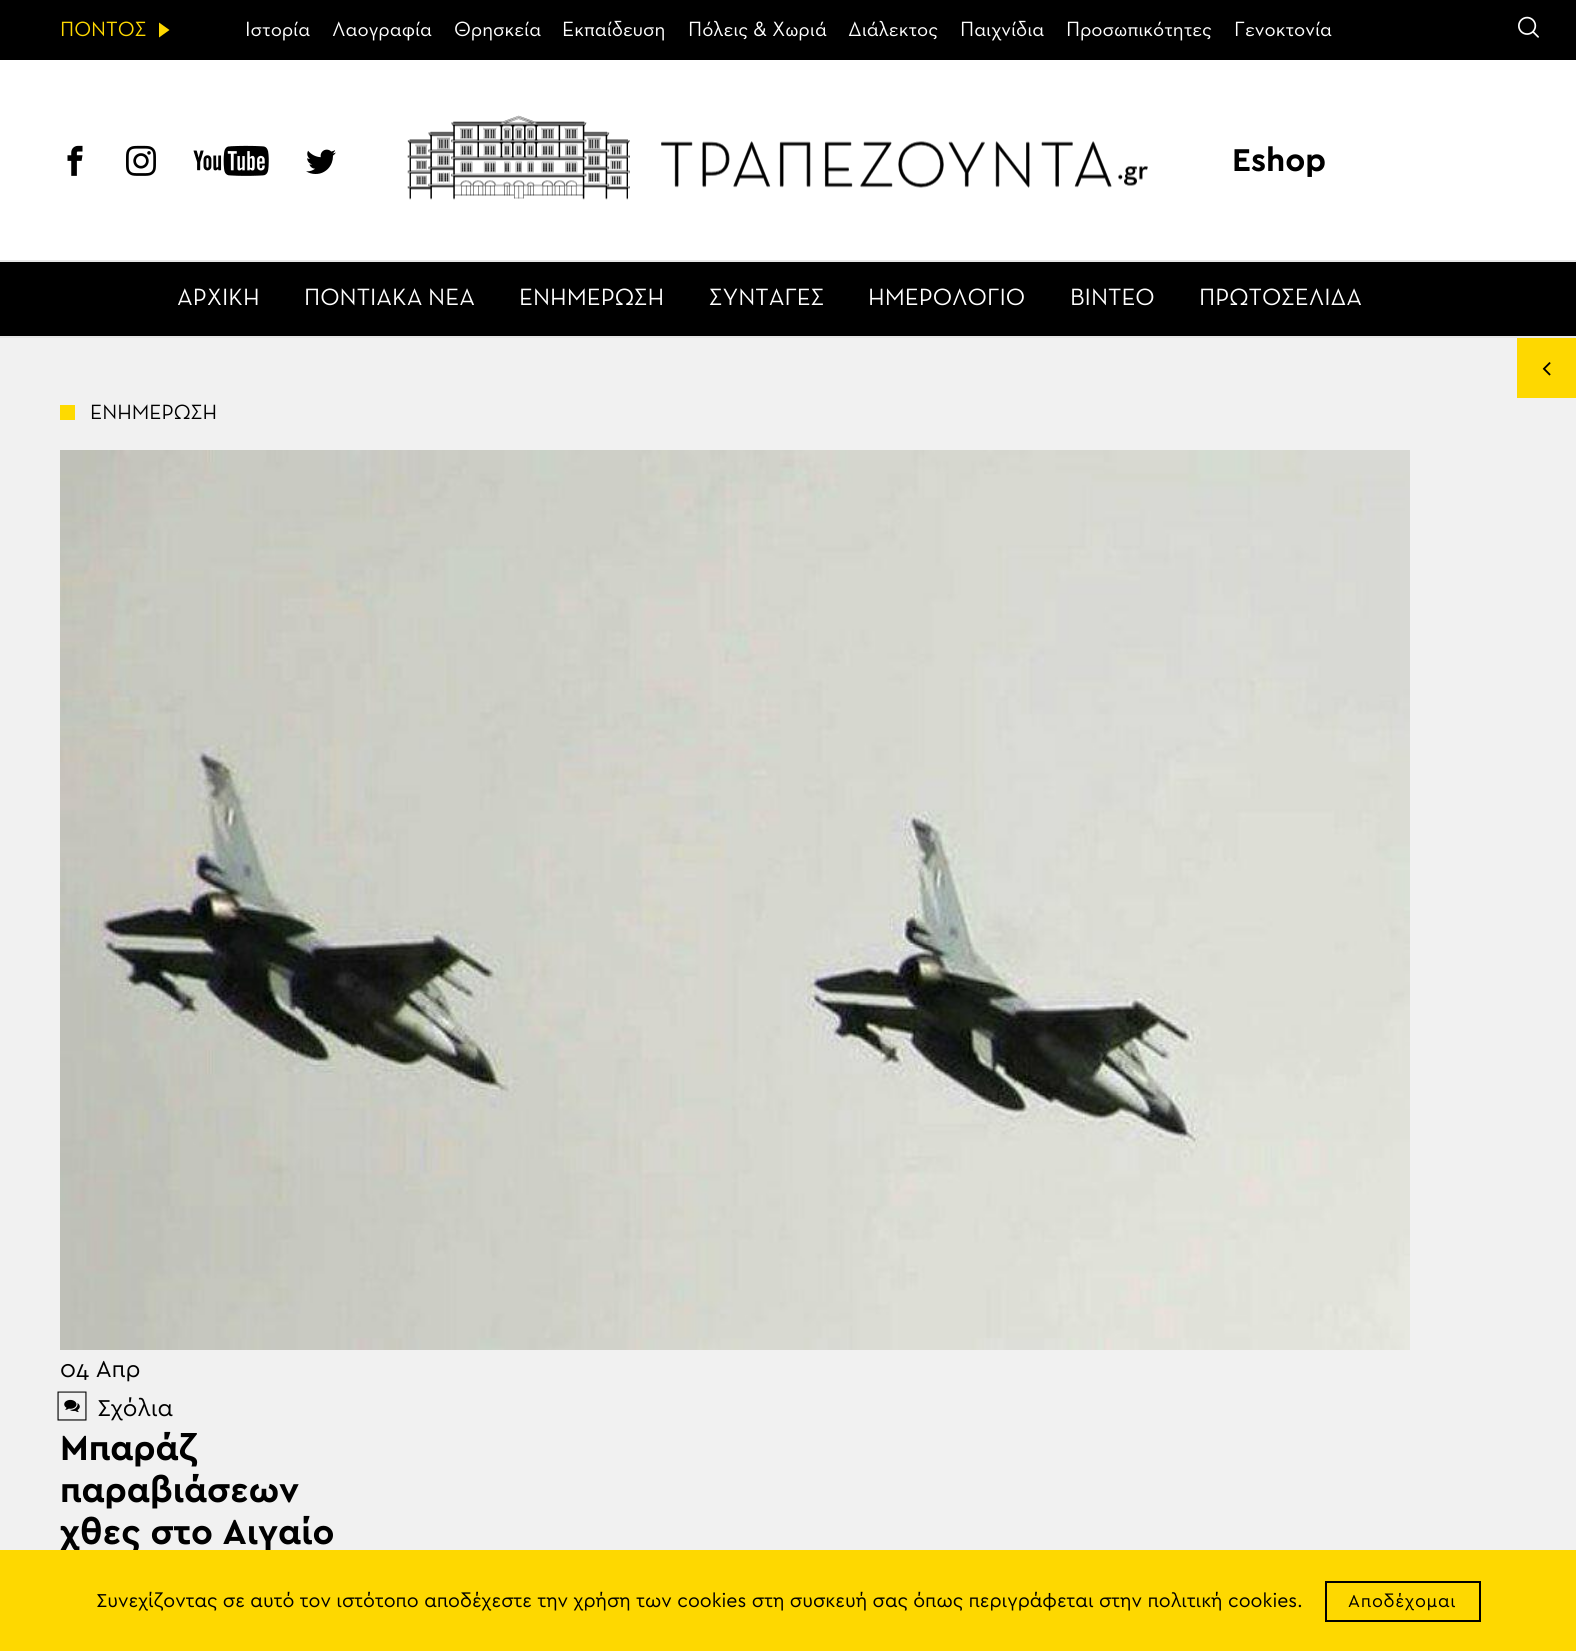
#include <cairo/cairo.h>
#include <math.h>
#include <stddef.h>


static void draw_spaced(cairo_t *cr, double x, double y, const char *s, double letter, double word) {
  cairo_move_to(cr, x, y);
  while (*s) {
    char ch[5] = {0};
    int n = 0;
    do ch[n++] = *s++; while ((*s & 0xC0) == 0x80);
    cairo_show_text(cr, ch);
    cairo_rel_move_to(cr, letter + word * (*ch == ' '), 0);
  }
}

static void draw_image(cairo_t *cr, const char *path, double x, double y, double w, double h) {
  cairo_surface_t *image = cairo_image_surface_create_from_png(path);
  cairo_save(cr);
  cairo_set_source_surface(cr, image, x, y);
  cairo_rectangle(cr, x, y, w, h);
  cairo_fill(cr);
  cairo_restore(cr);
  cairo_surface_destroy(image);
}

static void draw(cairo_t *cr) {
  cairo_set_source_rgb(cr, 241 / 255.0, 241 / 255.0, 241 / 255.0);
  cairo_paint(cr);
  cairo_set_source_rgb(cr, 230 / 255.0, 230 / 255.0, 230 / 255.0);
  cairo_rectangle(cr, 0, 336, 1576, 2);
  cairo_fill(cr);
  cairo_set_source_rgb(cr, 0, 0, 0);
  cairo_rectangle(cr, 0, 0, 1576, 60);
  cairo_fill(cr);
  cairo_set_source_rgb(cr, 254 / 255.0, 216 / 255.0, 0);
  cairo_new_path(cr);
  cairo_move_to(cr, 159, 37.5);
  cairo_line_to(cr, 159, 22.5);
  cairo_line_to(cr, 169.5, 30);
  cairo_close_path(cr);
  cairo_fill(cr);
  draw_image(cr, "images/1.png", 1518, 16, 21, 22);
  cairo_set_source_rgb(cr, 1, 1, 1);
  cairo_rectangle(cr, 0, 60, 1576, 200);
  cairo_fill(cr);
  draw_image(cr, "images/2.png", 67, 145, 16, 31);
  draw_image(cr, "images/3.png", 126, 145, 30, 31);
  draw_image(cr, "images/4.png", 193, 145, 76, 31);
  draw_image(cr, "images/5.png", 306, 149, 30, 25);
  draw_image(cr, "images/6.png", 407, 115, 741, 85);
  cairo_set_source_rgb(cr, 0, 0, 0);
  cairo_rectangle(cr, 0, 262, 1576, 74);
  cairo_fill(cr);
  cairo_set_source_rgb(cr, 230 / 255.0, 230 / 255.0, 230 / 255.0);
  cairo_rectangle(cr, 0, 260, 1576, 2);
  cairo_fill(cr);
  cairo_set_source_rgb(cr, 254 / 255.0, 216 / 255.0, 0);
  cairo_rectangle(cr, 1517, 338, 59, 60);
  cairo_fill(cr);
  draw_image(cr, "images/7.png", 1542, 362, 9, 14);
  cairo_set_source_rgb(cr, 254 / 255.0, 218 / 255.0, 0);
  cairo_rectangle(cr, 60, 405, 15, 15);
  cairo_fill(cr);
  draw_image(cr, "images/8.png", 60, 450, 1350, 900);
  draw_image(cr, "images/9.png", 57, 1391, 30, 30);
  cairo_select_font_face(cr, "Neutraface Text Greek", CAIRO_FONT_SLANT_NORMAL, CAIRO_FONT_WEIGHT_NORMAL);
  cairo_set_font_size(cr, 21);
  cairo_set_source_rgb(cr, 254 / 255.0, 216 / 255.0, 0);
  cairo_move_to(cr, 60, 36);
  cairo_show_text(cr, "ΠΟΝΤΟΣ");
  cairo_set_source_rgb(cr, 1, 1, 1);
  cairo_move_to(cr, 245, 36);
  cairo_show_text(cr, "Ιστορία");
  cairo_move_to(cr, 332, 36);
  cairo_show_text(cr, "Λαογραφία");
  cairo_move_to(cr, 454, 36);
  cairo_show_text(cr, "Θρησκεία");
  cairo_move_to(cr, 562, 36);
  cairo_show_text(cr, "Εκπαίδευση");
  cairo_move_to(cr, 688, 36);
  cairo_show_text(cr, "Πόλεις & Χωριά");
  cairo_move_to(cr, 848, 36);
  cairo_show_text(cr, "Διάλεκτος");
  cairo_move_to(cr, 960, 36);
  cairo_show_text(cr, "Παιχνίδια");
  cairo_move_to(cr, 1066, 36);
  cairo_show_text(cr, "Προσωπικότητες");
  cairo_move_to(cr, 1234, 36);
  cairo_show_text(cr, "Γενοκτονία");
  cairo_select_font_face(cr, "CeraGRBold", CAIRO_FONT_SLANT_NORMAL, CAIRO_FONT_WEIGHT_BOLD);
  cairo_set_font_size(cr, 33);
  cairo_set_source_rgb(cr, 0, 0, 0);
  cairo_move_to(cr, 1232, 171);
  cairo_show_text(cr, "Eshop");
  cairo_select_font_face(cr, "Neutraface Text Greek", CAIRO_FONT_SLANT_NORMAL, CAIRO_FONT_WEIGHT_NORMAL);
  cairo_set_font_size(cr, 24);
  cairo_set_source_rgb(cr, 1, 1, 1);
  cairo_move_to(cr, 177, 305);
  cairo_show_text(cr, "ΑΡΧΙΚΗ");
  cairo_move_to(cr, 304, 305);
  cairo_show_text(cr, "ΠΟΝΤΙΑΚΑ ΝΕΑ");
  cairo_move_to(cr, 519, 305);
  cairo_show_text(cr, "ΕΝΗΜΕΡΩΣΗ");
  cairo_move_to(cr, 709, 305);
  cairo_show_text(cr, "ΣΥΝΤΑΓΕΣ");
  cairo_move_to(cr, 868, 305);
  cairo_show_text(cr, "ΗΜΕΡΟΛΟΓΙΟ");
  cairo_move_to(cr, 1070, 305);
  cairo_show_text(cr, "ΒΙΝΤΕΟ");
  cairo_move_to(cr, 1199, 305);
  cairo_show_text(cr, "ΠΡΩΤΟΣΕΛΙΔΑ");
  cairo_set_font_size(cr, 21);
  cairo_set_source_rgb(cr, 0, 0, 0);
  cairo_move_to(cr, 90, 419);
  cairo_show_text(cr, "ΕΝΗΜΕΡΩΣΗ");
  cairo_select_font_face(cr, "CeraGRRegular", CAIRO_FONT_SLANT_NORMAL, CAIRO_FONT_WEIGHT_NORMAL);
  cairo_set_font_size(cr, 24);
  cairo_move_to(cr, 60, 1377);
  cairo_show_text(cr, "04 Απρ");
  cairo_move_to(cr, 97, 1416);
  cairo_show_text(cr, "Σχόλια");
  cairo_select_font_face(cr, "CeraGRBold", CAIRO_FONT_SLANT_NORMAL, CAIRO_FONT_WEIGHT_BOLD);
  cairo_set_font_size(cr, 36);
  cairo_move_to(cr, 60, 1460);
  cairo_show_text(cr, "Μπαράζ");
  cairo_move_to(cr, 60, 1502);
  cairo_show_text(cr, "παραβιάσεων");
  cairo_move_to(cr, 60, 1544);
  cairo_show_text(cr, "χθες στο Αιγαίο");
  cairo_set_source_rgb(cr, 254 / 255.0, 216 / 255.0, 0);
  cairo_rectangle(cr, 0, 1550, 1576, 101);
  cairo_fill(cr);
  cairo_select_font_face(cr, "CeraGRRegular", CAIRO_FONT_SLANT_NORMAL, CAIRO_FONT_WEIGHT_NORMAL);
  cairo_set_font_size(cr, 19.5);
  cairo_set_source_rgb(cr, 0, 0, 0);
  cairo_move_to(cr, 96, 1607);
  cairo_show_text(cr, "Συνεχίζοντας σε αυτό τον ιστότοπο αποδέχεστε την χρήση των cookies στη συσκευή σας όπως περιγράφεται στην πολιτική cookies.");
  cairo_rectangle(cr, 1326, 1582, 154, 39);
  cairo_stroke(cr);
  cairo_set_font_size(cr, 18);
  draw_spaced(cr, 1348, 1607, "Αποδέχομαι", 0.75, 0);
}

int main(void) {
  cairo_surface_t *surface = cairo_image_surface_create(CAIRO_FORMAT_RGB24, 1576, 1651);
  cairo_t *cr = cairo_create(surface);
  cairo_font_options_t *options = cairo_font_options_create();
  cairo_font_options_set_hint_metrics(options, CAIRO_HINT_METRICS_OFF);
  cairo_font_options_set_hint_style(options, CAIRO_HINT_STYLE_NONE);
  cairo_set_font_options(cr, options);
  cairo_set_miter_limit(cr, 4);
  draw(cr);
  cairo_surface_write_to_png(surface, "out.png");
  cairo_font_options_destroy(options);
  cairo_destroy(cr);
  cairo_surface_destroy(surface);
  return 0;
}
